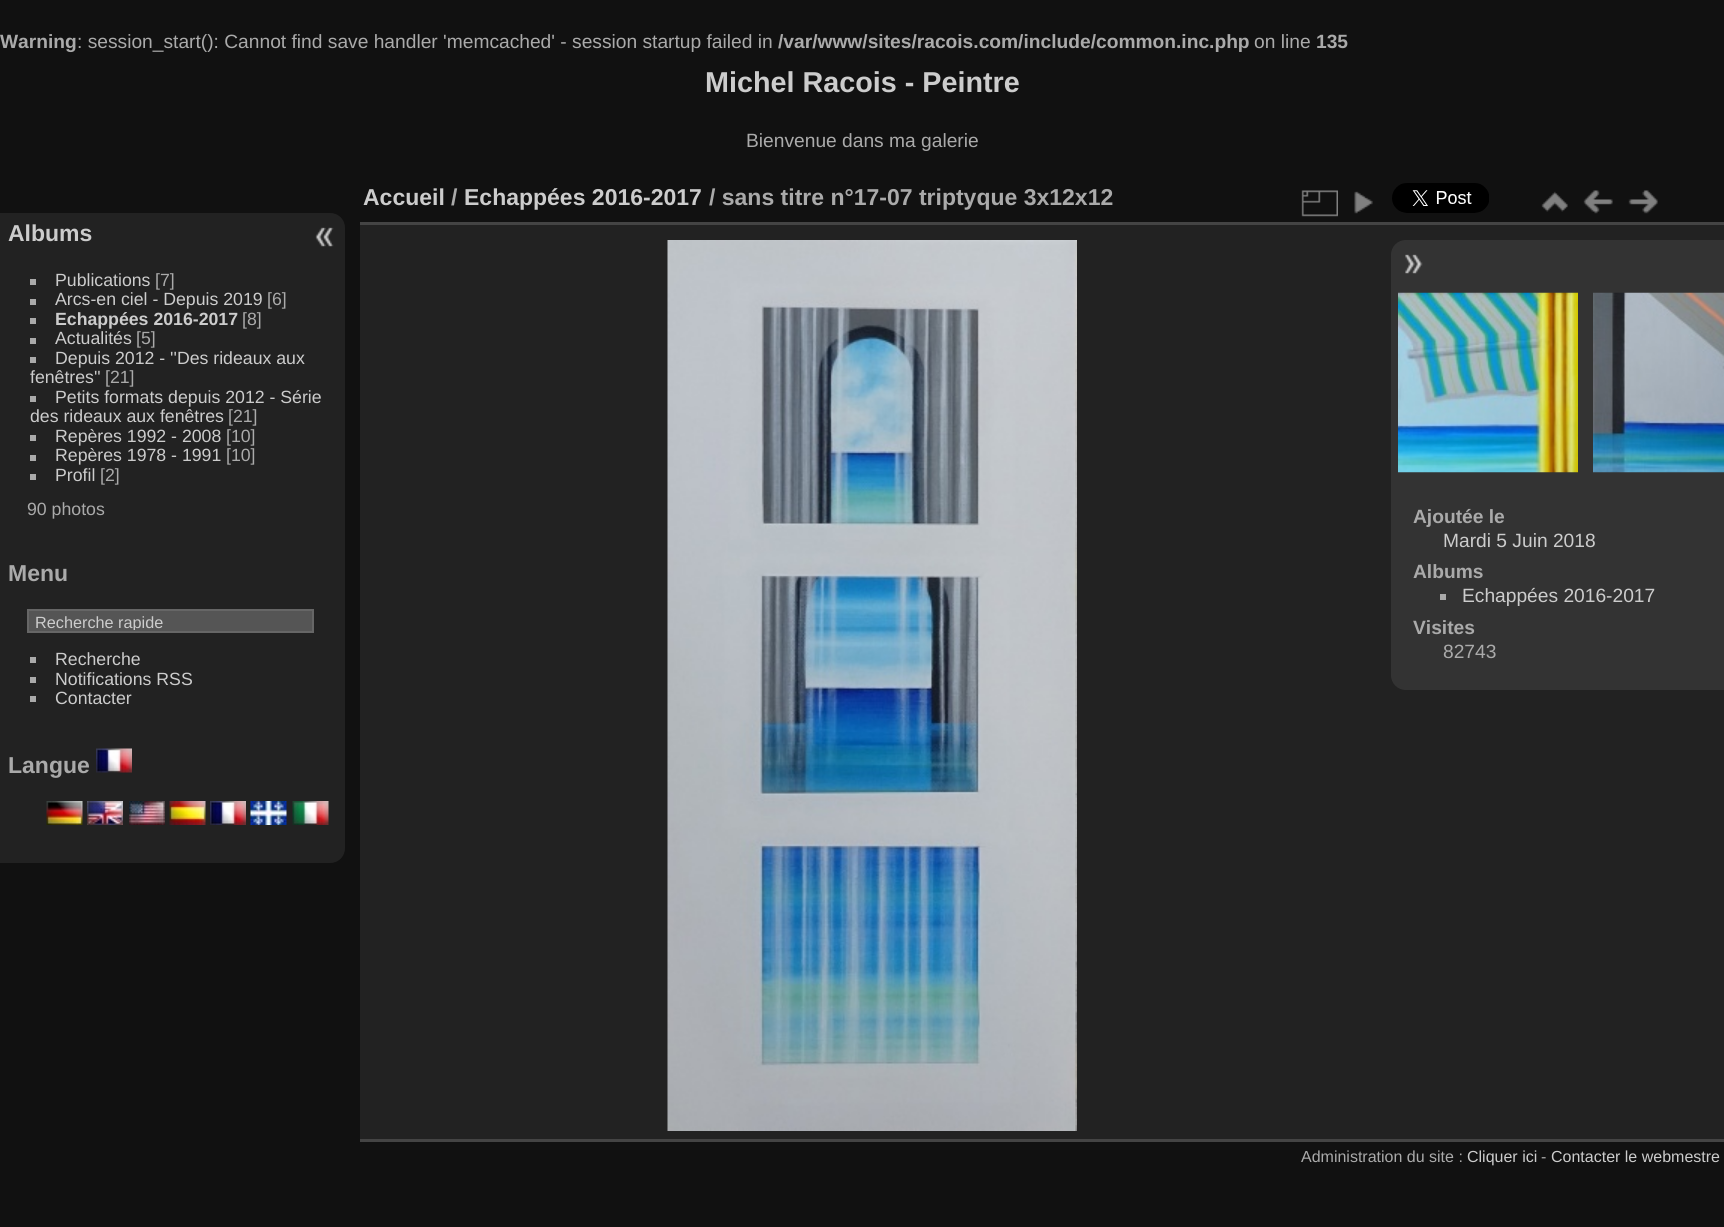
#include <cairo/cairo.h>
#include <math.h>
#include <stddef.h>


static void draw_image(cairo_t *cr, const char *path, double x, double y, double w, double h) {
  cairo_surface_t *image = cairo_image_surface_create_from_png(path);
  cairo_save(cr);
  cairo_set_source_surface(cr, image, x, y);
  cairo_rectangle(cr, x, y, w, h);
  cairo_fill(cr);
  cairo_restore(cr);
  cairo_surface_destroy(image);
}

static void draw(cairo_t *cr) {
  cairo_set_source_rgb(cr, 17 / 255.0, 17 / 255.0, 17 / 255.0);
  cairo_paint(cr);
  cairo_set_source_rgb(cr, 34 / 255.0, 34 / 255.0, 34 / 255.0);
  cairo_new_path(cr);
  cairo_move_to(cr, 0, 213);
  cairo_line_to(cr, 330, 213);
  cairo_curve_to(cr, 338.5, 213, 345, 219.5, 345, 228);
  cairo_line_to(cr, 345, 848);
  cairo_curve_to(cr, 345, 856.5, 338.5, 863, 330, 863);
  cairo_line_to(cr, 0, 863);
  cairo_close_path(cr);
  cairo_fill(cr);
  cairo_set_source_rgb(cr, 170 / 255.0, 170 / 255.0, 170 / 255.0);
  cairo_rectangle(cr, 30, 279, 6, 6);
  cairo_fill(cr);
  cairo_rectangle(cr, 30, 299, 6, 6);
  cairo_fill(cr);
  cairo_rectangle(cr, 30, 318, 6, 6);
  cairo_fill(cr);
  cairo_rectangle(cr, 30, 338, 6, 6);
  cairo_fill(cr);
  cairo_rectangle(cr, 30, 357, 6, 6);
  cairo_fill(cr);
  cairo_rectangle(cr, 30, 396, 6, 6);
  cairo_fill(cr);
  cairo_rectangle(cr, 30, 435, 6, 6);
  cairo_fill(cr);
  cairo_rectangle(cr, 30, 455, 6, 6);
  cairo_fill(cr);
  cairo_rectangle(cr, 30, 474, 6, 6);
  cairo_fill(cr);
  cairo_set_source_rgb(cr, 85 / 255.0, 85 / 255.0, 85 / 255.0);
  cairo_rectangle(cr, 28, 610, 285, 22);
  cairo_fill_preserve(cr);
  cairo_set_source_rgb(cr, 102 / 255.0, 102 / 255.0, 102 / 255.0);
  cairo_stroke(cr);
  cairo_set_source_rgb(cr, 170 / 255.0, 170 / 255.0, 170 / 255.0);
  cairo_rectangle(cr, 30, 657, 6, 6);
  cairo_fill(cr);
  cairo_rectangle(cr, 30, 677, 6, 6);
  cairo_fill(cr);
  cairo_rectangle(cr, 30, 696, 6, 6);
  cairo_fill(cr);
  draw_image(cr, "images/1.png", 96, 748, 36, 25);
  draw_image(cr, "images/2.png", 46, 801, 37, 24);
  draw_image(cr, "images/3.png", 87, 801, 36, 24);
  draw_image(cr, "images/4.png", 129, 801, 36, 24);
  draw_image(cr, "images/5.png", 169, 801, 37, 24);
  draw_image(cr, "images/6.png", 210, 801, 36, 24);
  draw_image(cr, "images/7.png", 250, 801, 37, 24);
  draw_image(cr, "images/8.png", 292, 801, 37, 24);
  draw_image(cr, "images/9.png", 315, 227, 19, 20);
  cairo_set_source_rgb(cr, 34 / 255.0, 34 / 255.0, 34 / 255.0);
  cairo_rectangle(cr, 360, 225, 1364, 914);
  cairo_fill(cr);
  cairo_set_source_rgb(cr, 68 / 255.0, 68 / 255.0, 68 / 255.0);
  cairo_rectangle(cr, 360, 1139, 1364, 3);
  cairo_fill(cr);
  cairo_rectangle(cr, 360, 222, 1364, 3);
  cairo_fill(cr);
  draw_image(cr, "images/10.png", 1301, 190, 37, 27);
  draw_image(cr, "images/11.png", 1354, 191, 19, 23);
  draw_image(cr, "images/12.png", 1392, 183, 97, 30);
  draw_image(cr, "images/13.png", 1541, 191, 27, 21);
  draw_image(cr, "images/14.png", 1583, 190, 30, 24);
  draw_image(cr, "images/15.png", 1628, 190, 30, 24);
  draw_image(cr, "images/16.png", 667, 240, 410, 891);
  cairo_set_source_rgb(cr, 51 / 255.0, 51 / 255.0, 51 / 255.0);
  cairo_new_path(cr);
  cairo_move_to(cr, 1406, 240);
  cairo_line_to(cr, 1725, 240);
  cairo_line_to(cr, 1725, 690);
  cairo_line_to(cr, 1406, 690);
  cairo_curve_to(cr, 1397.5, 690, 1391, 683.5, 1391, 675);
  cairo_line_to(cr, 1391, 255);
  cairo_curve_to(cr, 1391, 246.5, 1397.5, 240, 1406, 240);
  cairo_close_path(cr);
  cairo_fill(cr);
  draw_image(cr, "images/17.png", 1405, 254, 18, 20);
  draw_image(cr, "images/18.png", 1398, 292, 180, 181);
  draw_image(cr, "images/19.png", 1593, 292, 131, 181);
  cairo_set_source_rgb(cr, 170 / 255.0, 170 / 255.0, 170 / 255.0);
  cairo_rectangle(cr, 1440, 594, 6, 6);
  cairo_fill(cr);
  cairo_select_font_face(cr, "Liberation Sans", CAIRO_FONT_SLANT_NORMAL, CAIRO_FONT_WEIGHT_BOLD);
  cairo_set_font_size(cr, 19.2);
  cairo_move_to(cr, 0, 48);
  cairo_show_text(cr, "Warning");
  cairo_select_font_face(cr, "Liberation Sans", CAIRO_FONT_SLANT_NORMAL, CAIRO_FONT_WEIGHT_NORMAL);
  cairo_move_to(cr, 77, 48);
  cairo_show_text(cr, ": session_start(): Cannot find save handler 'memcached' - session startup failed in");
  cairo_select_font_face(cr, "Liberation Sans", CAIRO_FONT_SLANT_NORMAL, CAIRO_FONT_WEIGHT_BOLD);
  cairo_move_to(cr, 778, 48);
  cairo_show_text(cr, "/var/www/sites/racois.com/include/common.inc.php");
  cairo_select_font_face(cr, "Liberation Sans", CAIRO_FONT_SLANT_NORMAL, CAIRO_FONT_WEIGHT_NORMAL);
  cairo_move_to(cr, 1254, 48);
  cairo_show_text(cr, "on line");
  cairo_select_font_face(cr, "Liberation Sans", CAIRO_FONT_SLANT_NORMAL, CAIRO_FONT_WEIGHT_BOLD);
  cairo_move_to(cr, 1316, 48);
  cairo_show_text(cr, "135");
  cairo_set_font_size(cr, 28.75);
  cairo_set_source_rgb(cr, 204 / 255.0, 204 / 255.0, 204 / 255.0);
  cairo_move_to(cr, 705, 92);
  cairo_show_text(cr, "Michel Racois - Peintre");
  cairo_select_font_face(cr, "Liberation Sans", CAIRO_FONT_SLANT_NORMAL, CAIRO_FONT_WEIGHT_NORMAL);
  cairo_set_font_size(cr, 19.2);
  cairo_set_source_rgb(cr, 170 / 255.0, 170 / 255.0, 170 / 255.0);
  cairo_move_to(cr, 746, 147);
  cairo_show_text(cr, "Bienvenue dans ma galerie");
  cairo_select_font_face(cr, "Liberation Sans", CAIRO_FONT_SLANT_NORMAL, CAIRO_FONT_WEIGHT_BOLD);
  cairo_set_font_size(cr, 23);
  cairo_set_source_rgb(cr, 204 / 255.0, 204 / 255.0, 204 / 255.0);
  cairo_move_to(cr, 8, 241);
  cairo_show_text(cr, "Albums");
  cairo_select_font_face(cr, "Liberation Sans", CAIRO_FONT_SLANT_NORMAL, CAIRO_FONT_WEIGHT_NORMAL);
  cairo_set_font_size(cr, 17.7);
  cairo_move_to(cr, 55, 286);
  cairo_show_text(cr, "Publications");
  cairo_set_source_rgb(cr, 170 / 255.0, 170 / 255.0, 170 / 255.0);
  cairo_move_to(cr, 155, 286);
  cairo_show_text(cr, "[7]");
  cairo_set_source_rgb(cr, 204 / 255.0, 204 / 255.0, 204 / 255.0);
  cairo_move_to(cr, 55, 305);
  cairo_show_text(cr, "Arcs-en ciel - Depuis 2019");
  cairo_set_source_rgb(cr, 170 / 255.0, 170 / 255.0, 170 / 255.0);
  cairo_move_to(cr, 267, 305);
  cairo_show_text(cr, "[6]");
  cairo_select_font_face(cr, "Liberation Sans", CAIRO_FONT_SLANT_NORMAL, CAIRO_FONT_WEIGHT_BOLD);
  cairo_set_source_rgb(cr, 204 / 255.0, 204 / 255.0, 204 / 255.0);
  cairo_move_to(cr, 55, 325);
  cairo_show_text(cr, "Echappées 2016-2017");
  cairo_select_font_face(cr, "Liberation Sans", CAIRO_FONT_SLANT_NORMAL, CAIRO_FONT_WEIGHT_NORMAL);
  cairo_set_source_rgb(cr, 170 / 255.0, 170 / 255.0, 170 / 255.0);
  cairo_move_to(cr, 242, 325);
  cairo_show_text(cr, "[8]");
  cairo_set_source_rgb(cr, 204 / 255.0, 204 / 255.0, 204 / 255.0);
  cairo_move_to(cr, 55, 344);
  cairo_show_text(cr, "Actualités");
  cairo_set_source_rgb(cr, 170 / 255.0, 170 / 255.0, 170 / 255.0);
  cairo_move_to(cr, 136, 344);
  cairo_show_text(cr, "[5]");
  cairo_set_source_rgb(cr, 204 / 255.0, 204 / 255.0, 204 / 255.0);
  cairo_move_to(cr, 55, 364);
  cairo_show_text(cr, "Depuis 2012 - ''Des rideaux aux");
  cairo_move_to(cr, 30, 383);
  cairo_show_text(cr, "fenêtres''");
  cairo_set_source_rgb(cr, 170 / 255.0, 170 / 255.0, 170 / 255.0);
  cairo_move_to(cr, 105, 383);
  cairo_show_text(cr, "[21]");
  cairo_set_source_rgb(cr, 204 / 255.0, 204 / 255.0, 204 / 255.0);
  cairo_move_to(cr, 55, 403);
  cairo_show_text(cr, "Petits formats depuis 2012 - Série");
  cairo_move_to(cr, 30, 422);
  cairo_show_text(cr, "des rideaux aux fenêtres");
  cairo_set_source_rgb(cr, 170 / 255.0, 170 / 255.0, 170 / 255.0);
  cairo_move_to(cr, 228, 422);
  cairo_show_text(cr, "[21]");
  cairo_set_source_rgb(cr, 204 / 255.0, 204 / 255.0, 204 / 255.0);
  cairo_move_to(cr, 55, 442);
  cairo_show_text(cr, "Repères 1992 - 2008");
  cairo_set_source_rgb(cr, 170 / 255.0, 170 / 255.0, 170 / 255.0);
  cairo_move_to(cr, 226, 442);
  cairo_show_text(cr, "[10]");
  cairo_set_source_rgb(cr, 204 / 255.0, 204 / 255.0, 204 / 255.0);
  cairo_move_to(cr, 55, 461);
  cairo_show_text(cr, "Repères 1978 - 1991");
  cairo_set_source_rgb(cr, 170 / 255.0, 170 / 255.0, 170 / 255.0);
  cairo_move_to(cr, 226, 461);
  cairo_show_text(cr, "[10]");
  cairo_set_source_rgb(cr, 204 / 255.0, 204 / 255.0, 204 / 255.0);
  cairo_move_to(cr, 55, 481);
  cairo_show_text(cr, "Profil");
  cairo_set_source_rgb(cr, 170 / 255.0, 170 / 255.0, 170 / 255.0);
  cairo_move_to(cr, 100, 481);
  cairo_show_text(cr, "[2]");
  cairo_move_to(cr, 27, 515);
  cairo_show_text(cr, "90 photos");
  cairo_select_font_face(cr, "Liberation Sans", CAIRO_FONT_SLANT_NORMAL, CAIRO_FONT_WEIGHT_BOLD);
  cairo_set_font_size(cr, 23);
  cairo_move_to(cr, 8, 581);
  cairo_show_text(cr, "Menu");
  cairo_save(cr);
  cairo_rectangle(cr, 32, 612, 277, 18);
  cairo_clip(cr);
  cairo_select_font_face(cr, "Liberation Sans", CAIRO_FONT_SLANT_NORMAL, CAIRO_FONT_WEIGHT_NORMAL);
  cairo_set_font_size(cr, 16.25);
  cairo_set_source_rgb(cr, 204 / 255.0, 204 / 255.0, 204 / 255.0);
  cairo_move_to(cr, 35, 628);
  cairo_show_text(cr, "Recherche rapide");
  cairo_restore(cr);
  cairo_select_font_face(cr, "Liberation Sans", CAIRO_FONT_SLANT_NORMAL, CAIRO_FONT_WEIGHT_NORMAL);
  cairo_set_font_size(cr, 17.7);
  cairo_set_source_rgb(cr, 204 / 255.0, 204 / 255.0, 204 / 255.0);
  cairo_move_to(cr, 55, 665);
  cairo_show_text(cr, "Recherche");
  cairo_move_to(cr, 55, 685);
  cairo_show_text(cr, "Notifications RSS");
  cairo_move_to(cr, 55, 704);
  cairo_show_text(cr, "Contacter");
  cairo_select_font_face(cr, "Liberation Sans", CAIRO_FONT_SLANT_NORMAL, CAIRO_FONT_WEIGHT_BOLD);
  cairo_set_font_size(cr, 23);
  cairo_set_source_rgb(cr, 170 / 255.0, 170 / 255.0, 170 / 255.0);
  cairo_move_to(cr, 8, 773);
  cairo_show_text(cr, "Langue");
  cairo_set_source_rgb(cr, 204 / 255.0, 204 / 255.0, 204 / 255.0);
  cairo_move_to(cr, 363, 205);
  cairo_show_text(cr, "Accueil");
  cairo_set_source_rgb(cr, 170 / 255.0, 170 / 255.0, 170 / 255.0);
  cairo_move_to(cr, 451, 205);
  cairo_show_text(cr, "/");
  cairo_set_source_rgb(cr, 204 / 255.0, 204 / 255.0, 204 / 255.0);
  cairo_move_to(cr, 464, 205);
  cairo_show_text(cr, "Echappées 2016-2017");
  cairo_set_source_rgb(cr, 170 / 255.0, 170 / 255.0, 170 / 255.0);
  cairo_move_to(cr, 709, 205);
  cairo_show_text(cr, "/ sans titre n°17-07 triptyque 3x12x12");
  cairo_set_font_size(cr, 19.2);
  cairo_move_to(cr, 1413, 523);
  cairo_show_text(cr, "Ajoutée le");
  cairo_select_font_face(cr, "Liberation Sans", CAIRO_FONT_SLANT_NORMAL, CAIRO_FONT_WEIGHT_NORMAL);
  cairo_set_source_rgb(cr, 204 / 255.0, 204 / 255.0, 204 / 255.0);
  cairo_move_to(cr, 1443, 547);
  cairo_show_text(cr, "Mardi 5 Juin 2018");
  cairo_select_font_face(cr, "Liberation Sans", CAIRO_FONT_SLANT_NORMAL, CAIRO_FONT_WEIGHT_BOLD);
  cairo_set_source_rgb(cr, 170 / 255.0, 170 / 255.0, 170 / 255.0);
  cairo_move_to(cr, 1413, 578);
  cairo_show_text(cr, "Albums");
  cairo_select_font_face(cr, "Liberation Sans", CAIRO_FONT_SLANT_NORMAL, CAIRO_FONT_WEIGHT_NORMAL);
  cairo_set_source_rgb(cr, 204 / 255.0, 204 / 255.0, 204 / 255.0);
  cairo_move_to(cr, 1462, 602);
  cairo_show_text(cr, "Echappées 2016-2017");
  cairo_select_font_face(cr, "Liberation Sans", CAIRO_FONT_SLANT_NORMAL, CAIRO_FONT_WEIGHT_BOLD);
  cairo_set_source_rgb(cr, 170 / 255.0, 170 / 255.0, 170 / 255.0);
  cairo_move_to(cr, 1413, 634);
  cairo_show_text(cr, "Visites");
  cairo_select_font_face(cr, "Liberation Sans", CAIRO_FONT_SLANT_NORMAL, CAIRO_FONT_WEIGHT_NORMAL);
  cairo_move_to(cr, 1443, 658);
  cairo_show_text(cr, "82743");
  cairo_set_font_size(cr, 16);
  cairo_move_to(cr, 1301, 1162);
  cairo_show_text(cr, "Administration du site :");
  cairo_set_source_rgb(cr, 204 / 255.0, 204 / 255.0, 204 / 255.0);
  cairo_move_to(cr, 1467, 1162);
  cairo_show_text(cr, "Cliquer ici");
  cairo_set_source_rgb(cr, 170 / 255.0, 170 / 255.0, 170 / 255.0);
  cairo_move_to(cr, 1541, 1162);
  cairo_show_text(cr, "-");
  cairo_set_source_rgb(cr, 204 / 255.0, 204 / 255.0, 204 / 255.0);
  cairo_move_to(cr, 1551, 1162);
  cairo_show_text(cr, "Contacter le webmestre");
}

int main(void) {
  cairo_surface_t *surface = cairo_image_surface_create(CAIRO_FORMAT_RGB24, 1724, 1227);
  cairo_t *cr = cairo_create(surface);
  cairo_font_options_t *options = cairo_font_options_create();
  cairo_font_options_set_hint_metrics(options, CAIRO_HINT_METRICS_OFF);
  cairo_font_options_set_hint_style(options, CAIRO_HINT_STYLE_NONE);
  cairo_set_font_options(cr, options);
  cairo_set_miter_limit(cr, 4);
  draw(cr);
  cairo_surface_write_to_png(surface, "out.png");
  cairo_font_options_destroy(options);
  cairo_destroy(cr);
  cairo_surface_destroy(surface);
  return 0;
}
